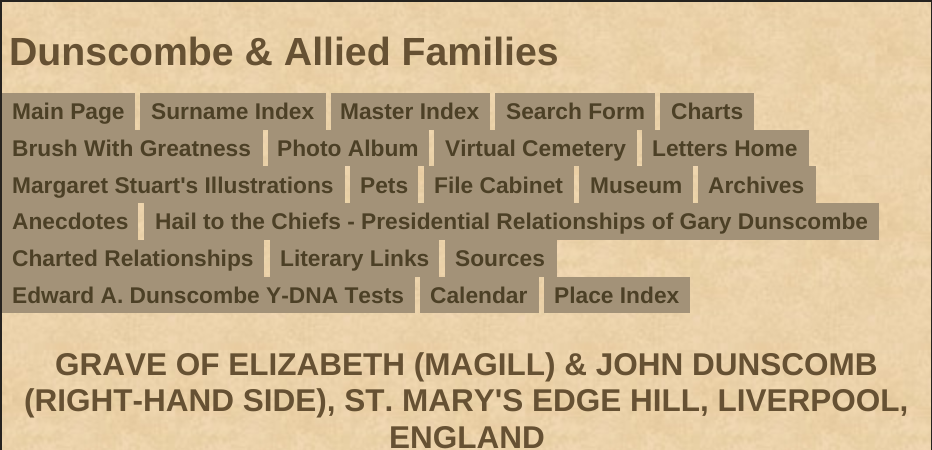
#include <cairo/cairo.h>
#include <math.h>
#include <stddef.h>


static void draw_image(cairo_t *cr, const char *path, double x, double y, double w, double h) {
  cairo_surface_t *image = cairo_image_surface_create_from_png(path);
  cairo_save(cr);
  cairo_set_source_surface(cr, image, x, y);
  cairo_rectangle(cr, x, y, w, h);
  cairo_fill(cr);
  cairo_restore(cr);
  cairo_surface_destroy(image);
}

static void draw(cairo_t *cr) {
  cairo_set_source_rgb(cr, 1, 1, 1);
  cairo_paint(cr);
  draw_image(cr, "images/1.png", 2, 2, 929, 448);
  cairo_rectangle(cr, 1, 1, 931, 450);
  cairo_set_source_rgb(cr, 38 / 255.0, 35 / 255.0, 31 / 255.0);
  cairo_stroke(cr);
  cairo_set_source_rgb(cr, 163 / 255.0, 146 / 255.0, 120 / 255.0);
  cairo_rectangle(cr, 2, 93, 133, 37);
  cairo_fill(cr);
  cairo_rectangle(cr, 140, 93, 186, 37);
  cairo_fill(cr);
  cairo_rectangle(cr, 331, 93, 159, 37);
  cairo_fill(cr);
  cairo_rectangle(cr, 495, 93, 160, 37);
  cairo_fill(cr);
  cairo_rectangle(cr, 660, 93, 94, 37);
  cairo_fill(cr);
  cairo_rectangle(cr, 2, 130, 261, 36);
  cairo_fill(cr);
  cairo_rectangle(cr, 268, 130, 161, 36);
  cairo_fill(cr);
  cairo_rectangle(cr, 434, 130, 203, 36);
  cairo_fill(cr);
  cairo_rectangle(cr, 642, 130, 167, 36);
  cairo_fill(cr);
  cairo_rectangle(cr, 2, 166, 343, 37);
  cairo_fill(cr);
  cairo_rectangle(cr, 350, 166, 68, 37);
  cairo_fill(cr);
  cairo_rectangle(cr, 424, 166, 150, 37);
  cairo_fill(cr);
  cairo_rectangle(cr, 579, 166, 114, 37);
  cairo_fill(cr);
  cairo_rectangle(cr, 698, 166, 118, 37);
  cairo_fill(cr);
  cairo_rectangle(cr, 2, 203, 136, 37);
  cairo_fill(cr);
  cairo_rectangle(cr, 144, 203, 735, 37);
  cairo_fill(cr);
  cairo_rectangle(cr, 2, 240, 262, 37);
  cairo_fill(cr);
  cairo_rectangle(cr, 270, 240, 169, 37);
  cairo_fill(cr);
  cairo_rectangle(cr, 445, 240, 112, 37);
  cairo_fill(cr);
  cairo_rectangle(cr, 2, 277, 413, 36);
  cairo_fill(cr);
  cairo_rectangle(cr, 420, 277, 119, 36);
  cairo_fill(cr);
  cairo_rectangle(cr, 544, 277, 146, 36);
  cairo_fill(cr);
  cairo_select_font_face(cr, "Liberation Sans", CAIRO_FONT_SLANT_NORMAL, CAIRO_FONT_WEIGHT_BOLD);
  cairo_set_font_size(cr, 39.25);
  cairo_set_source_rgb(cr, 102 / 255.0, 81 / 255.0, 51 / 255.0);
  cairo_move_to(cr, 9, 65);
  cairo_show_text(cr, "Dunscombe & Allied Families");
  cairo_set_font_size(cr, 22.75);
  cairo_set_source_rgb(cr, 76 / 255.0, 64 / 255.0, 38 / 255.0);
  cairo_move_to(cr, 12, 119);
  cairo_show_text(cr, "Main Page");
  cairo_move_to(cr, 151, 119);
  cairo_show_text(cr, "Surname Index");
  cairo_move_to(cr, 340, 119);
  cairo_show_text(cr, "Master Index");
  cairo_move_to(cr, 506, 119);
  cairo_show_text(cr, "Search Form");
  cairo_move_to(cr, 671, 119);
  cairo_show_text(cr, "Charts");
  cairo_move_to(cr, 12, 156);
  cairo_show_text(cr, "Brush With Greatness");
  cairo_move_to(cr, 277, 156);
  cairo_show_text(cr, "Photo Album");
  cairo_move_to(cr, 445, 156);
  cairo_show_text(cr, "Virtual Cemetery");
  cairo_move_to(cr, 652, 156);
  cairo_show_text(cr, "Letters Home");
  cairo_move_to(cr, 12, 193);
  cairo_show_text(cr, "Margaret Stuart's Illustrations");
  cairo_move_to(cr, 360, 193);
  cairo_show_text(cr, "Pets");
  cairo_move_to(cr, 434, 193);
  cairo_show_text(cr, "File Cabinet");
  cairo_move_to(cr, 590, 193);
  cairo_show_text(cr, "Museum");
  cairo_move_to(cr, 708, 193);
  cairo_show_text(cr, "Archives");
  cairo_move_to(cr, 12, 229);
  cairo_show_text(cr, "Anecdotes");
  cairo_move_to(cr, 155, 229);
  cairo_show_text(cr, "Hail to the Chiefs - Presidential Relationships of Gary Dunscombe");
  cairo_move_to(cr, 12, 266);
  cairo_show_text(cr, "Charted Relationships");
  cairo_move_to(cr, 280, 266);
  cairo_show_text(cr, "Literary Links");
  cairo_move_to(cr, 455, 266);
  cairo_show_text(cr, "Sources");
  cairo_move_to(cr, 12, 303);
  cairo_show_text(cr, "Edward A. Dunscombe Y-DNA Tests");
  cairo_move_to(cr, 430, 303);
  cairo_show_text(cr, "Calendar");
  cairo_move_to(cr, 554, 303);
  cairo_show_text(cr, "Place Index");
  cairo_set_font_size(cr, 31.5);
  cairo_set_source_rgb(cr, 102 / 255.0, 81 / 255.0, 51 / 255.0);
  cairo_move_to(cr, 55, 375);
  cairo_show_text(cr, "GRAVE OF ELIZABETH (MAGILL) & JOHN DUNSCOMB");
  cairo_move_to(cr, 24, 411);
  cairo_show_text(cr, "(RIGHT-HAND SIDE), ST. MARY'S EDGE HILL, LIVERPOOL,");
  cairo_move_to(cr, 389, 448);
  cairo_show_text(cr, "ENGLAND");
}

int main(void) {
  cairo_surface_t *surface = cairo_image_surface_create(CAIRO_FORMAT_RGB24, 932, 450);
  cairo_t *cr = cairo_create(surface);
  cairo_font_options_t *options = cairo_font_options_create();
  cairo_font_options_set_hint_metrics(options, CAIRO_HINT_METRICS_OFF);
  cairo_font_options_set_hint_style(options, CAIRO_HINT_STYLE_NONE);
  cairo_set_font_options(cr, options);
  cairo_set_miter_limit(cr, 4);
  draw(cr);
  cairo_surface_write_to_png(surface, "out.png");
  cairo_font_options_destroy(options);
  cairo_destroy(cr);
  cairo_surface_destroy(surface);
  return 0;
}
